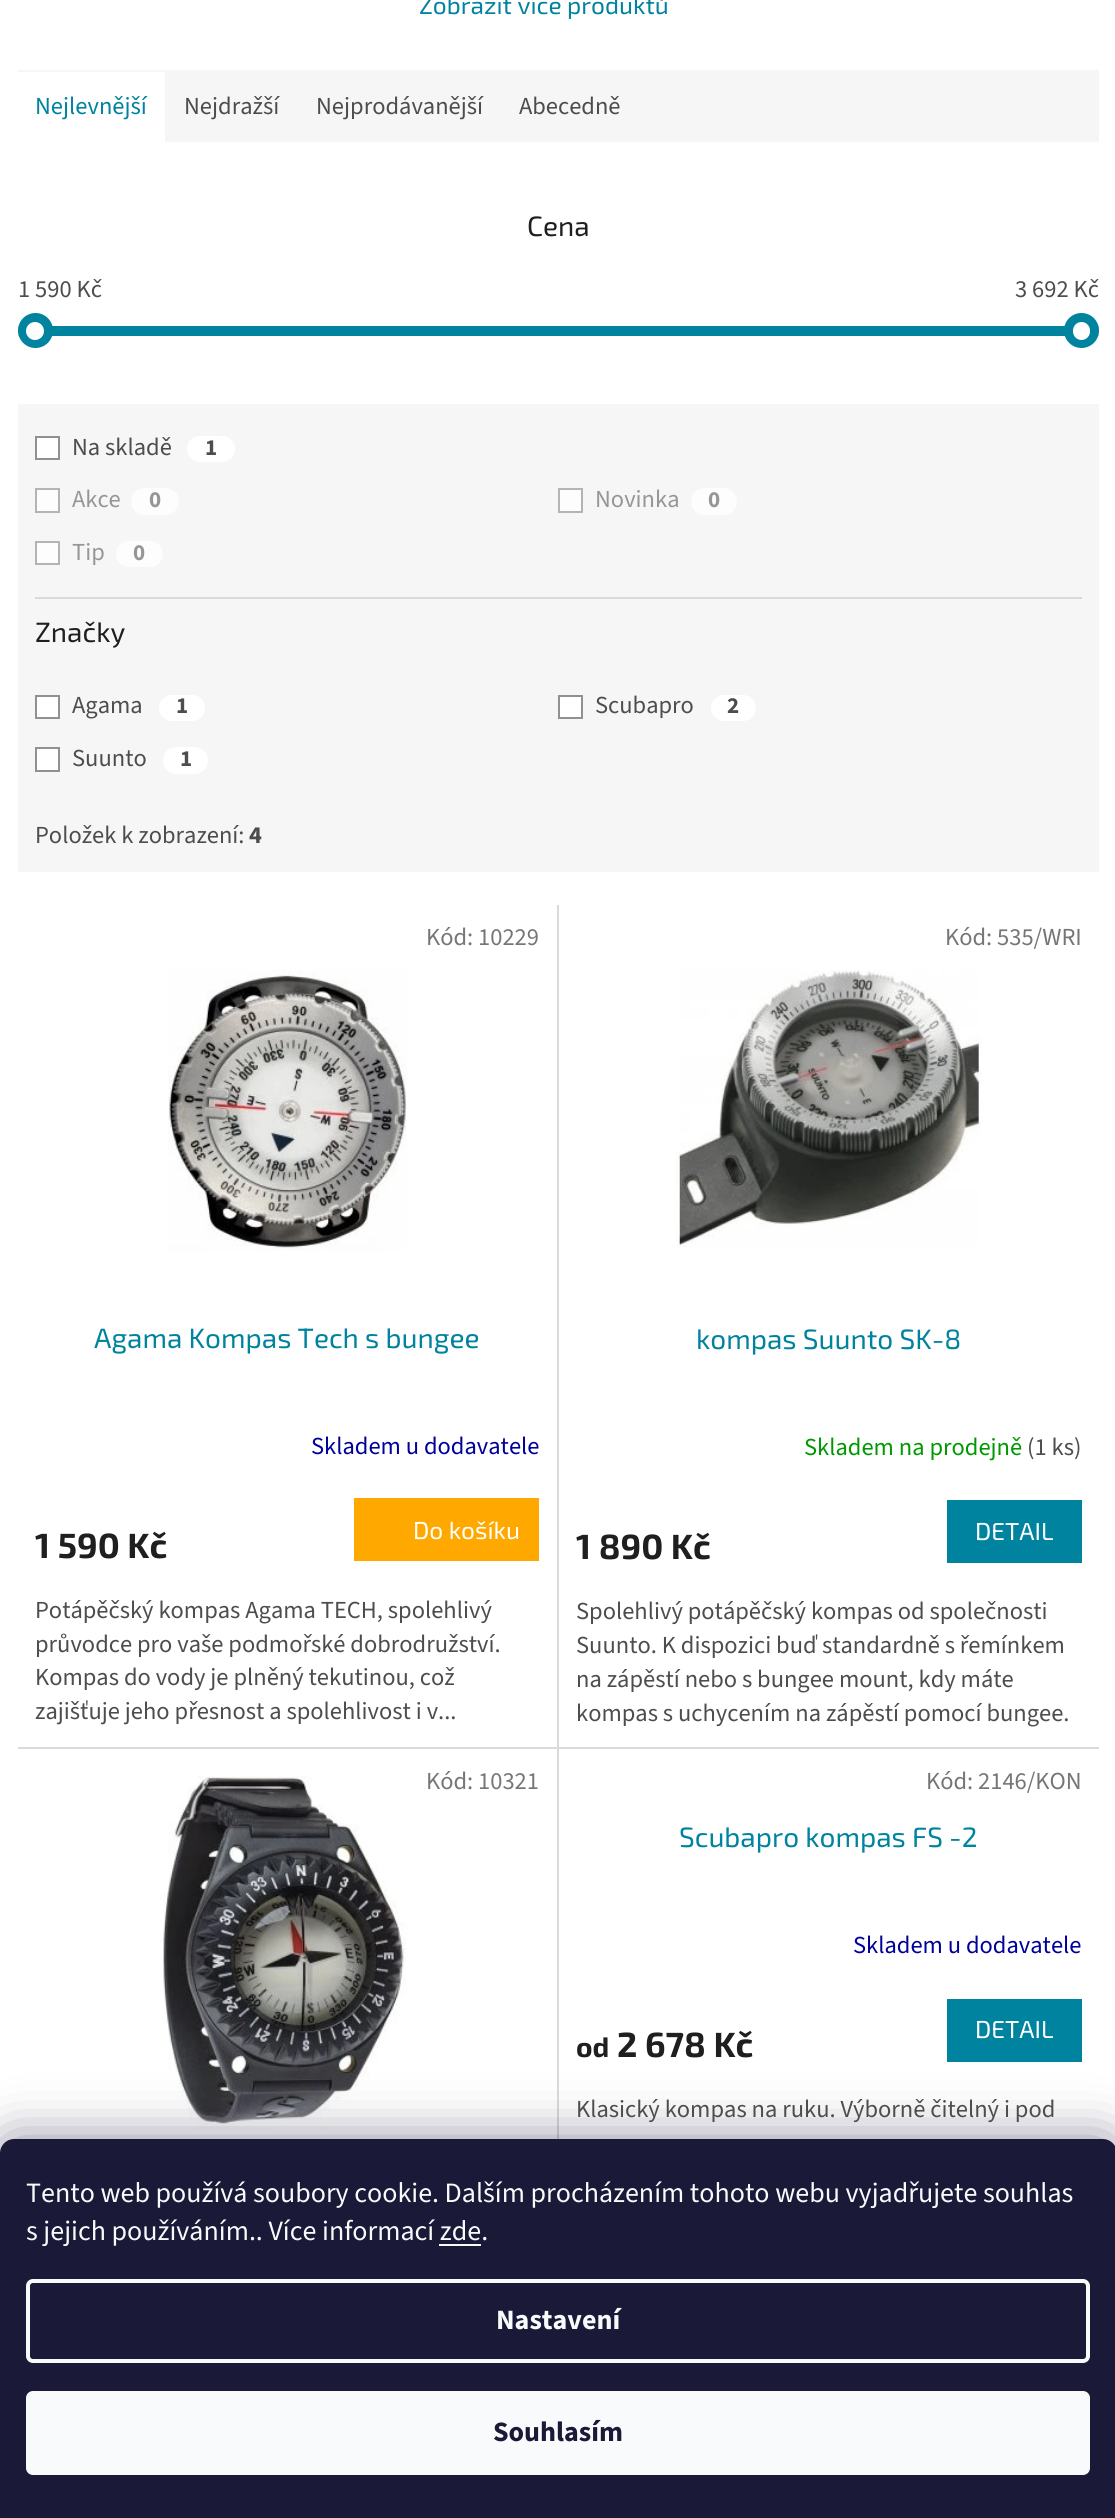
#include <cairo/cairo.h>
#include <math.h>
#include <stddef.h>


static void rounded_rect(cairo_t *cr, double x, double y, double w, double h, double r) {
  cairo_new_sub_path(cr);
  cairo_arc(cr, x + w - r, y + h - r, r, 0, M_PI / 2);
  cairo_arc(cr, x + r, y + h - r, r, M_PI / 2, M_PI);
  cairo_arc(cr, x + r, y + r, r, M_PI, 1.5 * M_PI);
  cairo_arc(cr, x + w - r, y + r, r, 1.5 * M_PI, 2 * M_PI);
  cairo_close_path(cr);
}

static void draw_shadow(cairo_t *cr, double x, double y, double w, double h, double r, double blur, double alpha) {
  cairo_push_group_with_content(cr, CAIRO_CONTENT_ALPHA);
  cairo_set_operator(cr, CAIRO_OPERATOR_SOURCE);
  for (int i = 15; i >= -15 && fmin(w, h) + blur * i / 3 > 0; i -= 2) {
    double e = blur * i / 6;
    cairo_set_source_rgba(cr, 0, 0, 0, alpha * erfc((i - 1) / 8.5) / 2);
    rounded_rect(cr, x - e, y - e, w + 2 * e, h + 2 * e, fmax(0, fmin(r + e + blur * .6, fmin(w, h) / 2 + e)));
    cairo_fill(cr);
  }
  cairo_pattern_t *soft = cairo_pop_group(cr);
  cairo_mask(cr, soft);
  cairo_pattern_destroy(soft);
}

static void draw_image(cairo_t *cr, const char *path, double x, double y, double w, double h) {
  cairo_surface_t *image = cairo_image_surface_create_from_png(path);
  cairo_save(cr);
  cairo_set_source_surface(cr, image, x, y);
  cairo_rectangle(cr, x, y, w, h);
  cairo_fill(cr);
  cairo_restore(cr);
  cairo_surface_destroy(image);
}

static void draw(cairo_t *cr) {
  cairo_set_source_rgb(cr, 1, 1, 1);
  cairo_paint(cr);
  cairo_set_source_rgb(cr, 246 / 255.0, 246 / 255.0, 246 / 255.0);
  cairo_rectangle(cr, 18, 70, 1081, 72);
  cairo_fill(cr);
  cairo_set_source_rgb(cr, 1, 1, 1);
  cairo_rectangle(cr, 18, 72, 147, 70);
  cairo_fill(cr);
  cairo_set_source_rgb(cr, 218 / 255.0, 218 / 255.0, 218 / 255.0);
  cairo_rectangle(cr, 18, 326, 1081, 10);
  cairo_fill(cr);
  cairo_set_source_rgb(cr, 0, 131 / 255.0, 159 / 255.0);
  cairo_rectangle(cr, 52, 326, 1013, 10);
  cairo_fill(cr);
  cairo_arc(cr, 35.5, 330.5, 17.5, 0, 2 * M_PI);
  cairo_fill(cr);
  cairo_set_source_rgb(cr, 1, 1, 1);
  cairo_arc(cr, 35, 331, 9, 0, 2 * M_PI);
  cairo_fill(cr);
  cairo_set_source_rgb(cr, 0, 131 / 255.0, 159 / 255.0);
  cairo_arc(cr, 1081.5, 330.5, 17.5, 0, 2 * M_PI);
  cairo_fill(cr);
  cairo_set_source_rgb(cr, 1, 1, 1);
  rounded_rect(cr, 1073, 322, 17, 18, 8.5);
  cairo_fill(cr);
  cairo_set_source_rgb(cr, 246 / 255.0, 246 / 255.0, 246 / 255.0);
  cairo_rectangle(cr, 18, 404, 1081, 468);
  cairo_fill(cr);
  cairo_set_source_rgb(cr, 1, 1, 1);
  cairo_rectangle(cr, 36, 437, 23, 22);
  cairo_fill_preserve(cr);
  cairo_set_source_rgb(cr, 145 / 255.0, 145 / 255.0, 145 / 255.0);
  cairo_stroke(cr);
  cairo_set_source_rgb(cr, 1, 1, 1);
  rounded_rect(cr, 187, 436, 48, 26, 13);
  cairo_fill(cr);
  cairo_set_source_rgb(cr, 253 / 255.0, 253 / 255.0, 253 / 255.0);
  cairo_rectangle(cr, 36, 489, 23, 23);
  cairo_fill_preserve(cr);
  cairo_set_source_rgb(cr, 180 / 255.0, 180 / 255.0, 180 / 255.0);
  cairo_stroke(cr);
  cairo_set_source_rgb(cr, 253 / 255.0, 253 / 255.0, 253 / 255.0);
  rounded_rect(cr, 131, 488, 48, 27, 13.5);
  cairo_fill(cr);
  cairo_rectangle(cr, 559, 489, 23, 23);
  cairo_fill_preserve(cr);
  cairo_set_source_rgb(cr, 180 / 255.0, 180 / 255.0, 180 / 255.0);
  cairo_stroke(cr);
  cairo_set_source_rgb(cr, 253 / 255.0, 253 / 255.0, 253 / 255.0);
  rounded_rect(cr, 691, 488, 46, 27, 13.5);
  cairo_fill(cr);
  cairo_rectangle(cr, 36, 542, 23, 22);
  cairo_fill_preserve(cr);
  cairo_set_source_rgb(cr, 180 / 255.0, 180 / 255.0, 180 / 255.0);
  cairo_stroke(cr);
  cairo_set_source_rgb(cr, 253 / 255.0, 253 / 255.0, 253 / 255.0);
  rounded_rect(cr, 116, 541, 47, 26, 13);
  cairo_fill(cr);
  cairo_set_source_rgb(cr, 218 / 255.0, 218 / 255.0, 218 / 255.0);
  cairo_rectangle(cr, 35, 597, 1047, 2);
  cairo_fill(cr);
  cairo_set_source_rgb(cr, 1, 1, 1);
  cairo_rectangle(cr, 36, 696, 23, 22);
  cairo_fill_preserve(cr);
  cairo_set_source_rgb(cr, 145 / 255.0, 145 / 255.0, 145 / 255.0);
  cairo_stroke(cr);
  cairo_set_source_rgb(cr, 1, 1, 1);
  rounded_rect(cr, 159, 695, 46, 26, 13);
  cairo_fill(cr);
  cairo_rectangle(cr, 559, 696, 23, 22);
  cairo_fill_preserve(cr);
  cairo_set_source_rgb(cr, 145 / 255.0, 145 / 255.0, 145 / 255.0);
  cairo_stroke(cr);
  cairo_set_source_rgb(cr, 1, 1, 1);
  rounded_rect(cr, 711, 695, 45, 26, 13);
  cairo_fill(cr);
  cairo_rectangle(cr, 36, 748, 23, 23);
  cairo_fill_preserve(cr);
  cairo_set_source_rgb(cr, 145 / 255.0, 145 / 255.0, 145 / 255.0);
  cairo_stroke(cr);
  cairo_set_source_rgb(cr, 1, 1, 1);
  rounded_rect(cr, 163, 747, 45, 27, 13.5);
  cairo_fill(cr);
  cairo_set_source_rgb(cr, 218 / 255.0, 218 / 255.0, 218 / 255.0);
  cairo_rectangle(cr, 557, 905, 2, 842);
  cairo_fill(cr);
  draw_image(cr, "images/1.png", 168, 970, 239, 281);
  cairo_set_source_rgb(cr, 1, 168 / 255.0, 0);
  cairo_rectangle(cr, 354, 1498, 185, 63);
  cairo_fill(cr);
  draw_image(cr, "images/2.png", 676, 970, 306, 277);
  cairo_set_source_rgb(cr, 0, 131 / 255.0, 159 / 255.0);
  cairo_rectangle(cr, 947, 1500, 135, 63);
  cairo_fill(cr);
  cairo_set_source_rgb(cr, 218 / 255.0, 218 / 255.0, 218 / 255.0);
  cairo_rectangle(cr, 18, 1747, 540, 2);
  cairo_fill(cr);
  cairo_rectangle(cr, 557, 1747, 2, 392);
  cairo_fill(cr);
  draw_image(cr, "images/3.png", 160, 1776, 247, 353);
  cairo_rectangle(cr, 558, 1747, 541, 2);
  cairo_fill(cr);
  cairo_set_source_rgb(cr, 0, 131 / 255.0, 159 / 255.0);
  cairo_rectangle(cr, 947, 1999, 135, 63);
  cairo_fill(cr);
  cairo_set_source_rgb(cr, 27 / 255.0, 25 / 255.0, 57 / 255.0);
  draw_shadow(cr, 0, 2139, 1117, 379, 14, 26, 0.5);
  cairo_set_source_rgb(cr, 26 / 255.0, 25 / 255.0, 55 / 255.0);
  cairo_new_path(cr);
  cairo_move_to(cr, 14, 2139);
  cairo_line_to(cr, 1103, 2139);
  cairo_curve_to(cr, 1110.5, 2139, 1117, 2145.5, 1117, 2153);
  cairo_line_to(cr, 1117, 2518);
  cairo_line_to(cr, 0, 2518);
  cairo_line_to(cr, 0, 2153);
  cairo_curve_to(cr, 0, 2145.5, 6.5, 2139, 14, 2139);
  cairo_close_path(cr);
  cairo_fill(cr);
  cairo_set_source_rgb(cr, 248 / 255.0, 250 / 255.0, 251 / 255.0);
  cairo_rectangle(cr, 439, 2244, 42, 2);
  cairo_fill(cr);
  rounded_rect(cr, 28, 2281, 1060, 80, 5);
  cairo_set_line_width(cr, 4);
  cairo_stroke(cr);
  rounded_rect(cr, 26, 2391, 1064, 84, 7);
  cairo_fill(cr);
  cairo_select_font_face(cr, "Exo 2", CAIRO_FONT_SLANT_NORMAL, CAIRO_FONT_WEIGHT_NORMAL);
  cairo_set_font_size(cr, 24.5);
  cairo_set_source_rgb(cr, 0, 131 / 255.0, 159 / 255.0);
  cairo_move_to(cr, 419, 14);
  cairo_show_text(cr, "Zobrazit více produktů");
  cairo_select_font_face(cr, "Source Sans 3", CAIRO_FONT_SLANT_NORMAL, CAIRO_FONT_WEIGHT_NORMAL);
  cairo_move_to(cr, 35, 114);
  cairo_show_text(cr, "Nejlevnější");
  cairo_set_source_rgb(cr, 77 / 255.0, 77 / 255.0, 77 / 255.0);
  cairo_move_to(cr, 184, 114);
  cairo_show_text(cr, "Nejdražší");
  cairo_move_to(cr, 316, 114);
  cairo_show_text(cr, "Nejprodávanější");
  cairo_move_to(cr, 519, 114);
  cairo_show_text(cr, "Abecedně");
  cairo_select_font_face(cr, "Exo 2", CAIRO_FONT_SLANT_NORMAL, CAIRO_FONT_WEIGHT_NORMAL);
  cairo_set_font_size(cr, 28);
  cairo_set_source_rgb(cr, 31 / 255.0, 31 / 255.0, 31 / 255.0);
  cairo_move_to(cr, 527, 236);
  cairo_show_text(cr, "Cena");
  cairo_select_font_face(cr, "Source Sans 3", CAIRO_FONT_SLANT_NORMAL, CAIRO_FONT_WEIGHT_NORMAL);
  cairo_set_font_size(cr, 24.5);
  cairo_set_source_rgb(cr, 77 / 255.0, 77 / 255.0, 77 / 255.0);
  cairo_move_to(cr, 18, 297);
  cairo_show_text(cr, "1 590 Kč");
  cairo_move_to(cr, 1015, 297);
  cairo_show_text(cr, "3 692 Kč");
  cairo_move_to(cr, 72, 455);
  cairo_show_text(cr, "Na skladě");
  cairo_select_font_face(cr, "Source Sans 3", CAIRO_FONT_SLANT_NORMAL, CAIRO_FONT_WEIGHT_BOLD);
  cairo_set_font_size(cr, 23);
  cairo_move_to(cr, 205, 455);
  cairo_show_text(cr, "1");
  cairo_select_font_face(cr, "Source Sans 3", CAIRO_FONT_SLANT_NORMAL, CAIRO_FONT_WEIGHT_NORMAL);
  cairo_set_font_size(cr, 24.5);
  cairo_set_source_rgb(cr, 150 / 255.0, 150 / 255.0, 150 / 255.0);
  cairo_move_to(cr, 72, 507);
  cairo_show_text(cr, "Akce");
  cairo_select_font_face(cr, "Source Sans 3", CAIRO_FONT_SLANT_NORMAL, CAIRO_FONT_WEIGHT_BOLD);
  cairo_set_font_size(cr, 23);
  cairo_move_to(cr, 149, 507);
  cairo_show_text(cr, "0");
  cairo_select_font_face(cr, "Source Sans 3", CAIRO_FONT_SLANT_NORMAL, CAIRO_FONT_WEIGHT_NORMAL);
  cairo_set_font_size(cr, 24.5);
  cairo_move_to(cr, 595, 507);
  cairo_show_text(cr, "Novinka");
  cairo_select_font_face(cr, "Source Sans 3", CAIRO_FONT_SLANT_NORMAL, CAIRO_FONT_WEIGHT_BOLD);
  cairo_set_font_size(cr, 23);
  cairo_move_to(cr, 708, 507);
  cairo_show_text(cr, "0");
  cairo_select_font_face(cr, "Source Sans 3", CAIRO_FONT_SLANT_NORMAL, CAIRO_FONT_WEIGHT_NORMAL);
  cairo_set_font_size(cr, 24.5);
  cairo_move_to(cr, 72, 560);
  cairo_show_text(cr, "Tip");
  cairo_select_font_face(cr, "Source Sans 3", CAIRO_FONT_SLANT_NORMAL, CAIRO_FONT_WEIGHT_BOLD);
  cairo_set_font_size(cr, 23);
  cairo_move_to(cr, 133, 560);
  cairo_show_text(cr, "0");
  cairo_select_font_face(cr, "Exo 2", CAIRO_FONT_SLANT_NORMAL, CAIRO_FONT_WEIGHT_NORMAL);
  cairo_set_font_size(cr, 28);
  cairo_set_source_rgb(cr, 31 / 255.0, 31 / 255.0, 31 / 255.0);
  cairo_move_to(cr, 35, 642);
  cairo_show_text(cr, "Značky");
  cairo_select_font_face(cr, "Source Sans 3", CAIRO_FONT_SLANT_NORMAL, CAIRO_FONT_WEIGHT_NORMAL);
  cairo_set_font_size(cr, 24.5);
  cairo_set_source_rgb(cr, 77 / 255.0, 77 / 255.0, 77 / 255.0);
  cairo_move_to(cr, 72, 713);
  cairo_show_text(cr, "Agama");
  cairo_select_font_face(cr, "Source Sans 3", CAIRO_FONT_SLANT_NORMAL, CAIRO_FONT_WEIGHT_BOLD);
  cairo_set_font_size(cr, 23);
  cairo_move_to(cr, 176, 713);
  cairo_show_text(cr, "1");
  cairo_select_font_face(cr, "Source Sans 3", CAIRO_FONT_SLANT_NORMAL, CAIRO_FONT_WEIGHT_NORMAL);
  cairo_set_font_size(cr, 24.5);
  cairo_move_to(cr, 595, 713);
  cairo_show_text(cr, "Scubapro");
  cairo_select_font_face(cr, "Source Sans 3", CAIRO_FONT_SLANT_NORMAL, CAIRO_FONT_WEIGHT_BOLD);
  cairo_set_font_size(cr, 23);
  cairo_move_to(cr, 727, 713);
  cairo_show_text(cr, "2");
  cairo_select_font_face(cr, "Source Sans 3", CAIRO_FONT_SLANT_NORMAL, CAIRO_FONT_WEIGHT_NORMAL);
  cairo_set_font_size(cr, 24.5);
  cairo_move_to(cr, 72, 766);
  cairo_show_text(cr, "Suunto");
  cairo_select_font_face(cr, "Source Sans 3", CAIRO_FONT_SLANT_NORMAL, CAIRO_FONT_WEIGHT_BOLD);
  cairo_set_font_size(cr, 23);
  cairo_move_to(cr, 180, 766);
  cairo_show_text(cr, "1");
  cairo_select_font_face(cr, "Source Sans 3", CAIRO_FONT_SLANT_NORMAL, CAIRO_FONT_WEIGHT_NORMAL);
  cairo_set_font_size(cr, 24.5);
  cairo_move_to(cr, 35, 843);
  cairo_show_text(cr, "Položek k zobrazení:");
  cairo_select_font_face(cr, "Source Sans 3", CAIRO_FONT_SLANT_NORMAL, CAIRO_FONT_WEIGHT_BOLD);
  cairo_move_to(cr, 249, 843);
  cairo_show_text(cr, "4");
  cairo_select_font_face(cr, "Source Sans 3", CAIRO_FONT_SLANT_NORMAL, CAIRO_FONT_WEIGHT_NORMAL);
  cairo_set_source_rgb(cr, 118 / 255.0, 118 / 255.0, 118 / 255.0);
  cairo_move_to(cr, 426, 945);
  cairo_show_text(cr, "Kód: 10229");
  cairo_select_font_face(cr, "Exo 2", CAIRO_FONT_SLANT_NORMAL, CAIRO_FONT_WEIGHT_NORMAL);
  cairo_set_font_size(cr, 28);
  cairo_set_source_rgb(cr, 0, 131 / 255.0, 159 / 255.0);
  cairo_move_to(cr, 94, 1348);
  cairo_show_text(cr, "Agama Kompas Tech s bungee");
  cairo_select_font_face(cr, "Source Sans 3", CAIRO_FONT_SLANT_NORMAL, CAIRO_FONT_WEIGHT_NORMAL);
  cairo_set_font_size(cr, 24.5);
  cairo_set_source_rgb(cr, 0, 0, 155 / 255.0);
  cairo_move_to(cr, 311, 1454);
  cairo_show_text(cr, "Skladem u dodavatele");
  cairo_select_font_face(cr, "Exo 2", CAIRO_FONT_SLANT_NORMAL, CAIRO_FONT_WEIGHT_BOLD);
  cairo_set_font_size(cr, 35);
  cairo_set_source_rgb(cr, 31 / 255.0, 31 / 255.0, 31 / 255.0);
  cairo_move_to(cr, 35, 1558);
  cairo_show_text(cr, "1 590 Kč");
  cairo_select_font_face(cr, "Exo 2", CAIRO_FONT_SLANT_NORMAL, CAIRO_FONT_WEIGHT_NORMAL);
  cairo_set_font_size(cr, 24.5);
  cairo_set_source_rgb(cr, 1, 1, 1);
  cairo_move_to(cr, 413, 1539);
  cairo_show_text(cr, "Do košíku");
  cairo_select_font_face(cr, "Source Sans 3", CAIRO_FONT_SLANT_NORMAL, CAIRO_FONT_WEIGHT_NORMAL);
  cairo_set_source_rgb(cr, 77 / 255.0, 77 / 255.0, 77 / 255.0);
  cairo_move_to(cr, 35, 1618);
  cairo_show_text(cr, "Potápěčský kompas Agama TECH, spolehlivý");
  cairo_move_to(cr, 35, 1652);
  cairo_show_text(cr, "průvodce pro vaše podmořské dobrodružství.");
  cairo_move_to(cr, 35, 1685);
  cairo_show_text(cr, "Kompas do vody je plněný tekutinou, což");
  cairo_move_to(cr, 35, 1719);
  cairo_show_text(cr, "zajišťuje jeho přesnost a spolehlivost i v...");
  cairo_set_source_rgb(cr, 118 / 255.0, 118 / 255.0, 118 / 255.0);
  cairo_move_to(cr, 945, 945);
  cairo_show_text(cr, "Kód: 535/WRI");
  cairo_select_font_face(cr, "Exo 2", CAIRO_FONT_SLANT_NORMAL, CAIRO_FONT_WEIGHT_NORMAL);
  cairo_set_font_size(cr, 28);
  cairo_set_source_rgb(cr, 0, 131 / 255.0, 159 / 255.0);
  cairo_move_to(cr, 696, 1349);
  cairo_show_text(cr, "kompas Suunto SK-8");
  cairo_select_font_face(cr, "Source Sans 3", CAIRO_FONT_SLANT_NORMAL, CAIRO_FONT_WEIGHT_NORMAL);
  cairo_set_font_size(cr, 24.5);
  cairo_set_source_rgb(cr, 0, 153 / 255.0, 1 / 255.0);
  cairo_move_to(cr, 804, 1455);
  cairo_show_text(cr, "Skladem na prodejně");
  cairo_set_source_rgb(cr, 77 / 255.0, 77 / 255.0, 77 / 255.0);
  cairo_move_to(cr, 1027, 1455);
  cairo_show_text(cr, "(1 ks)");
  cairo_select_font_face(cr, "Exo 2", CAIRO_FONT_SLANT_NORMAL, CAIRO_FONT_WEIGHT_BOLD);
  cairo_set_font_size(cr, 35);
  cairo_set_source_rgb(cr, 31 / 255.0, 31 / 255.0, 31 / 255.0);
  cairo_move_to(cr, 576, 1559);
  cairo_show_text(cr, "1 890 Kč");
  cairo_select_font_face(cr, "Exo 2", CAIRO_FONT_SLANT_NORMAL, CAIRO_FONT_WEIGHT_NORMAL);
  cairo_set_font_size(cr, 24.5);
  cairo_set_source_rgb(cr, 1, 1, 1);
  cairo_move_to(cr, 975, 1540);
  cairo_show_text(cr, "DETAIL");
  cairo_select_font_face(cr, "Source Sans 3", CAIRO_FONT_SLANT_NORMAL, CAIRO_FONT_WEIGHT_NORMAL);
  cairo_set_source_rgb(cr, 77 / 255.0, 77 / 255.0, 77 / 255.0);
  cairo_move_to(cr, 576, 1619);
  cairo_show_text(cr, "Spolehlivý potápěčský kompas od společnosti");
  cairo_move_to(cr, 576, 1653);
  cairo_show_text(cr, "Suunto. K dispozici buď standardně s řemínkem");
  cairo_move_to(cr, 576, 1687);
  cairo_show_text(cr, "na zápěstí nebo s bungee mount, kdy máte");
  cairo_move_to(cr, 576, 1721);
  cairo_show_text(cr, "kompas s uchycením na zápěstí pomocí bungee.");
  cairo_set_source_rgb(cr, 118 / 255.0, 118 / 255.0, 118 / 255.0);
  cairo_move_to(cr, 426, 1789);
  cairo_show_text(cr, "Kód: 10321");
  cairo_move_to(cr, 926, 1789);
  cairo_show_text(cr, "Kód: 2146/KON");
  cairo_select_font_face(cr, "Exo 2", CAIRO_FONT_SLANT_NORMAL, CAIRO_FONT_WEIGHT_NORMAL);
  cairo_set_font_size(cr, 28);
  cairo_set_source_rgb(cr, 0, 131 / 255.0, 159 / 255.0);
  cairo_move_to(cr, 679, 1847);
  cairo_show_text(cr, "Scubapro kompas FS -2");
  cairo_select_font_face(cr, "Source Sans 3", CAIRO_FONT_SLANT_NORMAL, CAIRO_FONT_WEIGHT_NORMAL);
  cairo_set_font_size(cr, 24.5);
  cairo_set_source_rgb(cr, 0, 0, 155 / 255.0);
  cairo_move_to(cr, 853, 1953);
  cairo_show_text(cr, "Skladem u dodavatele");
  cairo_select_font_face(cr, "Exo 2", CAIRO_FONT_SLANT_NORMAL, CAIRO_FONT_WEIGHT_BOLD);
  cairo_set_font_size(cr, 28);
  cairo_set_source_rgb(cr, 31 / 255.0, 31 / 255.0, 31 / 255.0);
  cairo_move_to(cr, 576, 2057);
  cairo_show_text(cr, "od");
  cairo_set_font_size(cr, 35);
  cairo_move_to(cr, 617, 2057);
  cairo_show_text(cr, "2 678 Kč");
  cairo_select_font_face(cr, "Exo 2", CAIRO_FONT_SLANT_NORMAL, CAIRO_FONT_WEIGHT_NORMAL);
  cairo_set_font_size(cr, 24.5);
  cairo_set_source_rgb(cr, 1, 1, 1);
  cairo_move_to(cr, 975, 2038);
  cairo_show_text(cr, "DETAIL");
  cairo_select_font_face(cr, "Source Sans 3", CAIRO_FONT_SLANT_NORMAL, CAIRO_FONT_WEIGHT_NORMAL);
  cairo_set_source_rgb(cr, 77 / 255.0, 77 / 255.0, 77 / 255.0);
  cairo_move_to(cr, 576, 2117);
  cairo_show_text(cr, "Klasický kompas na ruku. Výborně čitelný i pod");
  cairo_set_font_size(cr, 28);
  cairo_set_source_rgb(cr, 248 / 255.0, 250 / 255.0, 251 / 255.0);
  cairo_move_to(cr, 26, 2202);
  cairo_show_text(cr, "Tento web používá soubory cookie. Dalším procházením tohoto webu vyjadřujete souhlas");
  cairo_move_to(cr, 26, 2240);
  cairo_show_text(cr, "s jejich používáním.. Více informací zde.");
  cairo_select_font_face(cr, "Source Sans 3", CAIRO_FONT_SLANT_NORMAL, CAIRO_FONT_WEIGHT_BOLD);
  cairo_move_to(cr, 496, 2329);
  cairo_show_text(cr, "Nastavení");
  cairo_set_source_rgb(cr, 26 / 255.0, 25 / 255.0, 55 / 255.0);
  cairo_move_to(cr, 493, 2441);
  cairo_show_text(cr, "Souhlasím");
}

int main(void) {
  cairo_surface_t *surface = cairo_image_surface_create(CAIRO_FORMAT_RGB24, 1115, 2518);
  cairo_t *cr = cairo_create(surface);
  cairo_font_options_t *options = cairo_font_options_create();
  cairo_font_options_set_hint_metrics(options, CAIRO_HINT_METRICS_OFF);
  cairo_font_options_set_hint_style(options, CAIRO_HINT_STYLE_NONE);
  cairo_set_font_options(cr, options);
  cairo_set_miter_limit(cr, 4);
  draw(cr);
  cairo_surface_write_to_png(surface, "out.png");
  cairo_font_options_destroy(options);
  cairo_destroy(cr);
  cairo_surface_destroy(surface);
  return 0;
}
